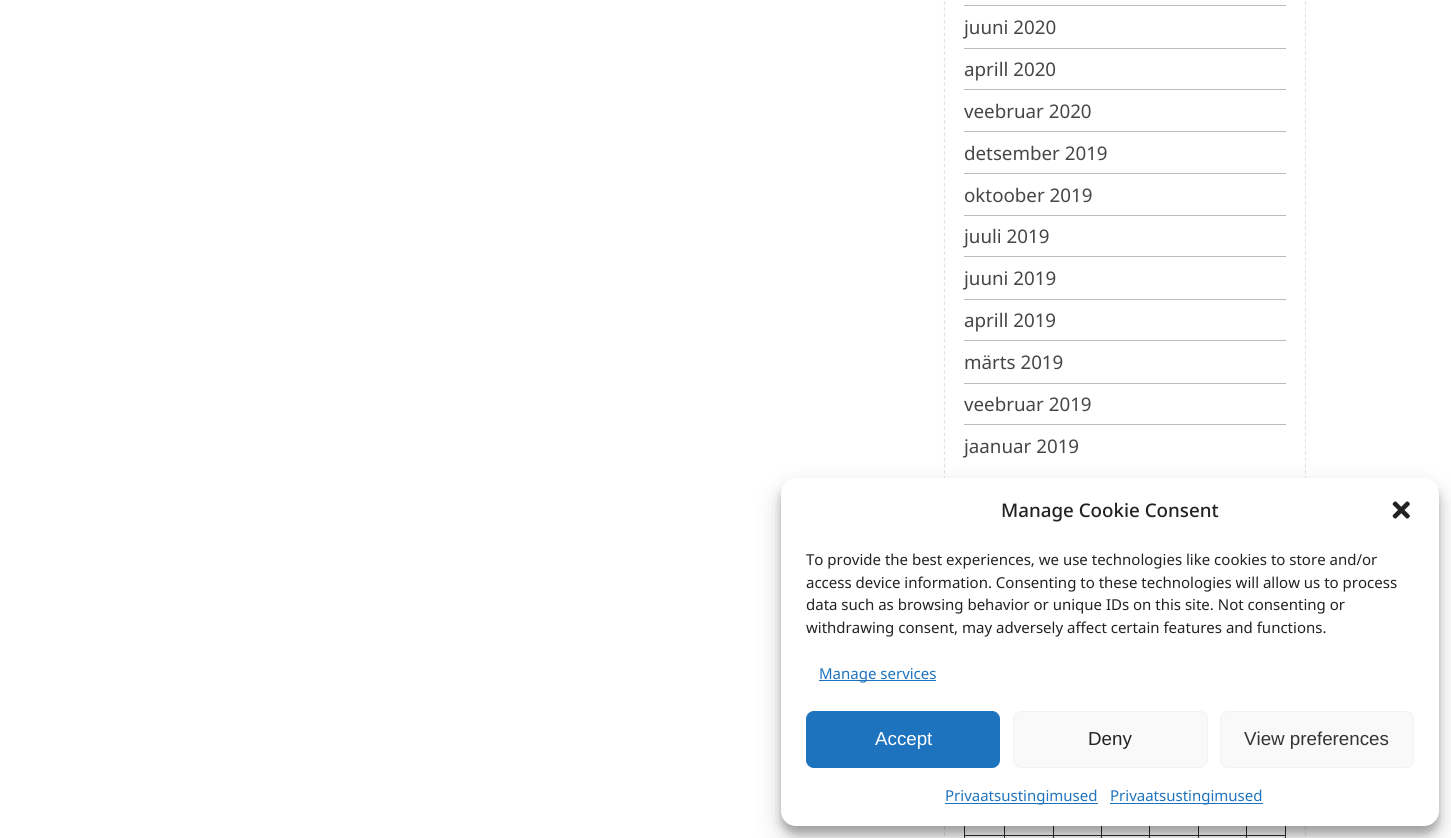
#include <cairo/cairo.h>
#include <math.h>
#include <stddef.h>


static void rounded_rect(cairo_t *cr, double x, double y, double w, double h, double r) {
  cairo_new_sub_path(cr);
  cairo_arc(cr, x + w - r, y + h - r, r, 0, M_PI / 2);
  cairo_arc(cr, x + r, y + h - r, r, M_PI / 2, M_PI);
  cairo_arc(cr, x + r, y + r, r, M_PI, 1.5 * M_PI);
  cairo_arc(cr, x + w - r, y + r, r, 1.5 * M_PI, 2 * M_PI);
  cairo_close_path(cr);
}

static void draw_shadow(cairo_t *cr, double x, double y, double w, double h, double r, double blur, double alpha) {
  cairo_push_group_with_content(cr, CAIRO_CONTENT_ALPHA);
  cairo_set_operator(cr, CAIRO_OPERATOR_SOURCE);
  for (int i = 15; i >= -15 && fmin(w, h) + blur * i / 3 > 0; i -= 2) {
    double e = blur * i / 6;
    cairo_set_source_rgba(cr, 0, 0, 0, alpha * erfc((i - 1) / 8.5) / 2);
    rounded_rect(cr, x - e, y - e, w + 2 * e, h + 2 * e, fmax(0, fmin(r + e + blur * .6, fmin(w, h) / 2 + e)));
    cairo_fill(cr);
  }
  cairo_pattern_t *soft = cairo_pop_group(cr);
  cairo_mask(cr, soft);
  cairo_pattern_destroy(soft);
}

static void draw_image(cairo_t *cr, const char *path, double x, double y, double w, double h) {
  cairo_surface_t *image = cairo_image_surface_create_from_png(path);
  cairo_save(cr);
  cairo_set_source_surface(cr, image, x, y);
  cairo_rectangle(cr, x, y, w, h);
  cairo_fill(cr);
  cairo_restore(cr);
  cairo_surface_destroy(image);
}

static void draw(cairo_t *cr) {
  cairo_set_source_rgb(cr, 1, 1, 1);
  cairo_paint(cr);
  cairo_new_path(cr);
  cairo_move_to(cr, 1305.5, -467.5);
  cairo_line_to(cr, 1305.5, 486);
  cairo_set_source_rgb(cr, 228 / 255.0, 228 / 255.0, 228 / 255.0);
  cairo_set_line_width(cr, 1.2);
  cairo_set_dash(cr, (double[]){3.75, 2.5}, 2, 0);
  cairo_stroke(cr);
  cairo_new_path(cr);
  cairo_move_to(cr, 944.5, -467.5);
  cairo_line_to(cr, 944.5, 486);
  cairo_stroke(cr);
  cairo_set_source_rgb(cr, 187 / 255.0, 187 / 255.0, 187 / 255.0);
  cairo_rectangle(cr, 964, 5, 322, 1);
  cairo_fill(cr);
  cairo_rectangle(cr, 964, 48, 322, 1);
  cairo_fill(cr);
  cairo_rectangle(cr, 964, 89, 322, 1);
  cairo_fill(cr);
  cairo_rectangle(cr, 964, 131, 322, 1);
  cairo_fill(cr);
  cairo_rectangle(cr, 964, 173, 322, 1);
  cairo_fill(cr);
  cairo_rectangle(cr, 964, 215, 322, 1);
  cairo_fill(cr);
  cairo_rectangle(cr, 964, 256, 322, 1);
  cairo_fill(cr);
  cairo_rectangle(cr, 964, 299, 322, 1);
  cairo_fill(cr);
  cairo_rectangle(cr, 964, 340, 322, 1);
  cairo_fill(cr);
  cairo_rectangle(cr, 964, 383, 322, 1);
  cairo_fill(cr);
  cairo_rectangle(cr, 964, 424, 322, 1);
  cairo_fill(cr);
  cairo_new_path(cr);
  cairo_move_to(cr, 1305.5, 689);
  cairo_line_to(cr, 1305.5, 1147.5);
  cairo_set_source_rgb(cr, 228 / 255.0, 228 / 255.0, 228 / 255.0);
  cairo_set_dash(cr, (double[]){3.75, 2.49}, 2, 0);
  cairo_stroke(cr);
  cairo_new_path(cr);
  cairo_move_to(cr, 944.5, 689);
  cairo_line_to(cr, 944.5, 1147.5);
  cairo_stroke(cr);
  cairo_set_source_rgb(cr, 41 / 255.0, 43 / 255.0, 44 / 255.0);
  cairo_rectangle(cr, 1285, 826, 1, 12);
  cairo_fill(cr);
  cairo_rectangle(cr, 964, 826, 1, 12);
  cairo_fill(cr);
  cairo_rectangle(cr, 1246, 835, 40, 1);
  cairo_fill(cr);
  cairo_rectangle(cr, 1246, 835, 1, 3);
  cairo_fill(cr);
  cairo_rectangle(cr, 1198, 835, 50, 1);
  cairo_fill(cr);
  cairo_rectangle(cr, 1198, 835, 1, 3);
  cairo_fill(cr);
  cairo_rectangle(cr, 1149, 835, 50, 1);
  cairo_fill(cr);
  cairo_rectangle(cr, 1149, 835, 1, 3);
  cairo_fill(cr);
  cairo_rectangle(cr, 1101, 835, 49, 1);
  cairo_fill(cr);
  cairo_rectangle(cr, 1101, 835, 1, 3);
  cairo_fill(cr);
  cairo_rectangle(cr, 1053, 835, 50, 1);
  cairo_fill(cr);
  cairo_rectangle(cr, 1053, 835, 1, 3);
  cairo_fill(cr);
  cairo_rectangle(cr, 1004, 835, 50, 1);
  cairo_fill(cr);
  cairo_rectangle(cr, 1004, 835, 1, 3);
  cairo_fill(cr);
  cairo_rectangle(cr, 964, 835, 41, 1);
  cairo_fill(cr);
  cairo_rectangle(cr, 1004, 826, 1, 10);
  cairo_fill(cr);
  cairo_rectangle(cr, 1053, 826, 1, 10);
  cairo_fill(cr);
  cairo_rectangle(cr, 1101, 826, 1, 10);
  cairo_fill(cr);
  cairo_rectangle(cr, 1149, 826, 1, 10);
  cairo_fill(cr);
  cairo_rectangle(cr, 1198, 826, 1, 10);
  cairo_fill(cr);
  cairo_rectangle(cr, 1246, 826, 1, 10);
  cairo_fill(cr);
  cairo_set_source_rgb(cr, 0, 0, 0);
  draw_shadow(cr, 781, 485, 658, 349, 15, 4, 0.23);
  draw_shadow(cr, 781, 490, 658, 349, 15, 12.5, 0.19);
  cairo_set_source_rgb(cr, 1, 1, 1);
  rounded_rect(cr, 781, 478, 658, 348, 15);
  cairo_fill(cr);
  draw_image(cr, "images/1.png", 1392, 501, 18, 18);
  cairo_set_source_rgb(cr, 30 / 255.0, 115 / 255.0, 190 / 255.0);
  cairo_rectangle(cr, 819, 680, 117, 1);
  cairo_fill(cr);
  rounded_rect(cr, 806.5, 711.5, 193, 56, 7.5);
  cairo_fill_preserve(cr);
  cairo_set_line_width(cr, 1);
  cairo_set_dash(cr, NULL, 0, 0);
  cairo_stroke(cr);
  cairo_set_source_rgb(cr, 249 / 255.0, 249 / 255.0, 249 / 255.0);
  rounded_rect(cr, 1013.5, 711.5, 194, 56, 7.5);
  cairo_fill_preserve(cr);
  cairo_set_source_rgb(cr, 242 / 255.0, 242 / 255.0, 242 / 255.0);
  cairo_stroke(cr);
  cairo_set_source_rgb(cr, 249 / 255.0, 249 / 255.0, 249 / 255.0);
  rounded_rect(cr, 1220.5, 711.5, 193, 56, 7.5);
  cairo_fill_preserve(cr);
  cairo_set_source_rgb(cr, 242 / 255.0, 242 / 255.0, 242 / 255.0);
  cairo_stroke(cr);
  cairo_set_source_rgb(cr, 30 / 255.0, 115 / 255.0, 190 / 255.0);
  cairo_rectangle(cr, 945, 803, 153, 1);
  cairo_fill(cr);
  cairo_rectangle(cr, 1110, 803, 153, 1);
  cairo_fill(cr);
  cairo_select_font_face(cr, "Noto Sans", CAIRO_FONT_SLANT_NORMAL, CAIRO_FONT_WEIGHT_NORMAL);
  cairo_set_font_size(cr, 18.75);
  cairo_set_source_rgb(cr, 70 / 255.0, 70 / 255.0, 70 / 255.0);
  cairo_move_to(cr, 964, 34);
  cairo_show_text(cr, "juuni 2020");
  cairo_move_to(cr, 964, 76);
  cairo_show_text(cr, "aprill 2020");
  cairo_move_to(cr, 964, 118);
  cairo_show_text(cr, "veebruar 2020");
  cairo_move_to(cr, 964, 160);
  cairo_show_text(cr, "detsember 2019");
  cairo_move_to(cr, 964, 202);
  cairo_show_text(cr, "oktoober 2019");
  cairo_move_to(cr, 964, 243);
  cairo_show_text(cr, "juuli 2019");
  cairo_move_to(cr, 964, 285);
  cairo_show_text(cr, "juuni 2019");
  cairo_move_to(cr, 964, 327);
  cairo_show_text(cr, "aprill 2019");
  cairo_move_to(cr, 964, 369);
  cairo_show_text(cr, "märts 2019");
  cairo_move_to(cr, 964, 411);
  cairo_show_text(cr, "veebruar 2019");
  cairo_move_to(cr, 964, 453);
  cairo_show_text(cr, "jaanuar 2019");
  cairo_select_font_face(cr, "Noto Sans Medium", CAIRO_FONT_SLANT_NORMAL, CAIRO_FONT_WEIGHT_NORMAL);
  cairo_set_source_rgb(cr, 34 / 255.0, 34 / 255.0, 34 / 255.0);
  cairo_move_to(cr, 1001, 517);
  cairo_show_text(cr, "Manage Cookie Consent");
  cairo_select_font_face(cr, "Noto Sans", CAIRO_FONT_SLANT_NORMAL, CAIRO_FONT_WEIGHT_NORMAL);
  cairo_set_font_size(cr, 15);
  cairo_move_to(cr, 806, 565);
  cairo_show_text(cr, "To provide the best experiences, we use technologies like cookies to store and/or");
  cairo_move_to(cr, 806, 588);
  cairo_show_text(cr, "access device information. Consenting to these technologies will allow us to process");
  cairo_move_to(cr, 806, 610);
  cairo_show_text(cr, "data such as browsing behavior or unique IDs on this site. Not consenting or");
  cairo_move_to(cr, 806, 633);
  cairo_show_text(cr, "withdrawing consent, may adversely affect certain features and functions.");
  cairo_set_source_rgb(cr, 30 / 255.0, 115 / 255.0, 190 / 255.0);
  cairo_move_to(cr, 819, 679);
  cairo_show_text(cr, "Manage services");
  cairo_select_font_face(cr, "Liberation Sans", CAIRO_FONT_SLANT_NORMAL, CAIRO_FONT_WEIGHT_NORMAL);
  cairo_set_font_size(cr, 18.75);
  cairo_set_source_rgb(cr, 1, 1, 1);
  cairo_move_to(cr, 875, 745);
  cairo_show_text(cr, "Accept");
  cairo_set_source_rgb(cr, 34 / 255.0, 34 / 255.0, 34 / 255.0);
  cairo_move_to(cr, 1088, 745);
  cairo_show_text(cr, "Deny");
  cairo_set_source_rgb(cr, 51 / 255.0, 51 / 255.0, 51 / 255.0);
  cairo_move_to(cr, 1244, 745);
  cairo_show_text(cr, "View preferences");
  cairo_select_font_face(cr, "Noto Sans", CAIRO_FONT_SLANT_NORMAL, CAIRO_FONT_WEIGHT_NORMAL);
  cairo_set_font_size(cr, 15);
  cairo_set_source_rgb(cr, 30 / 255.0, 115 / 255.0, 190 / 255.0);
  cairo_move_to(cr, 945, 801);
  cairo_show_text(cr, "Privaatsustingimused");
  cairo_move_to(cr, 1110, 801);
  cairo_show_text(cr, "Privaatsustingimused");
}

int main(void) {
  cairo_surface_t *surface = cairo_image_surface_create(CAIRO_FORMAT_RGB24, 1451, 838);
  cairo_t *cr = cairo_create(surface);
  cairo_font_options_t *options = cairo_font_options_create();
  cairo_font_options_set_hint_metrics(options, CAIRO_HINT_METRICS_OFF);
  cairo_font_options_set_hint_style(options, CAIRO_HINT_STYLE_NONE);
  cairo_set_font_options(cr, options);
  cairo_set_miter_limit(cr, 4);
  draw(cr);
  cairo_surface_write_to_png(surface, "out.png");
  cairo_font_options_destroy(options);
  cairo_destroy(cr);
  cairo_surface_destroy(surface);
  return 0;
}
